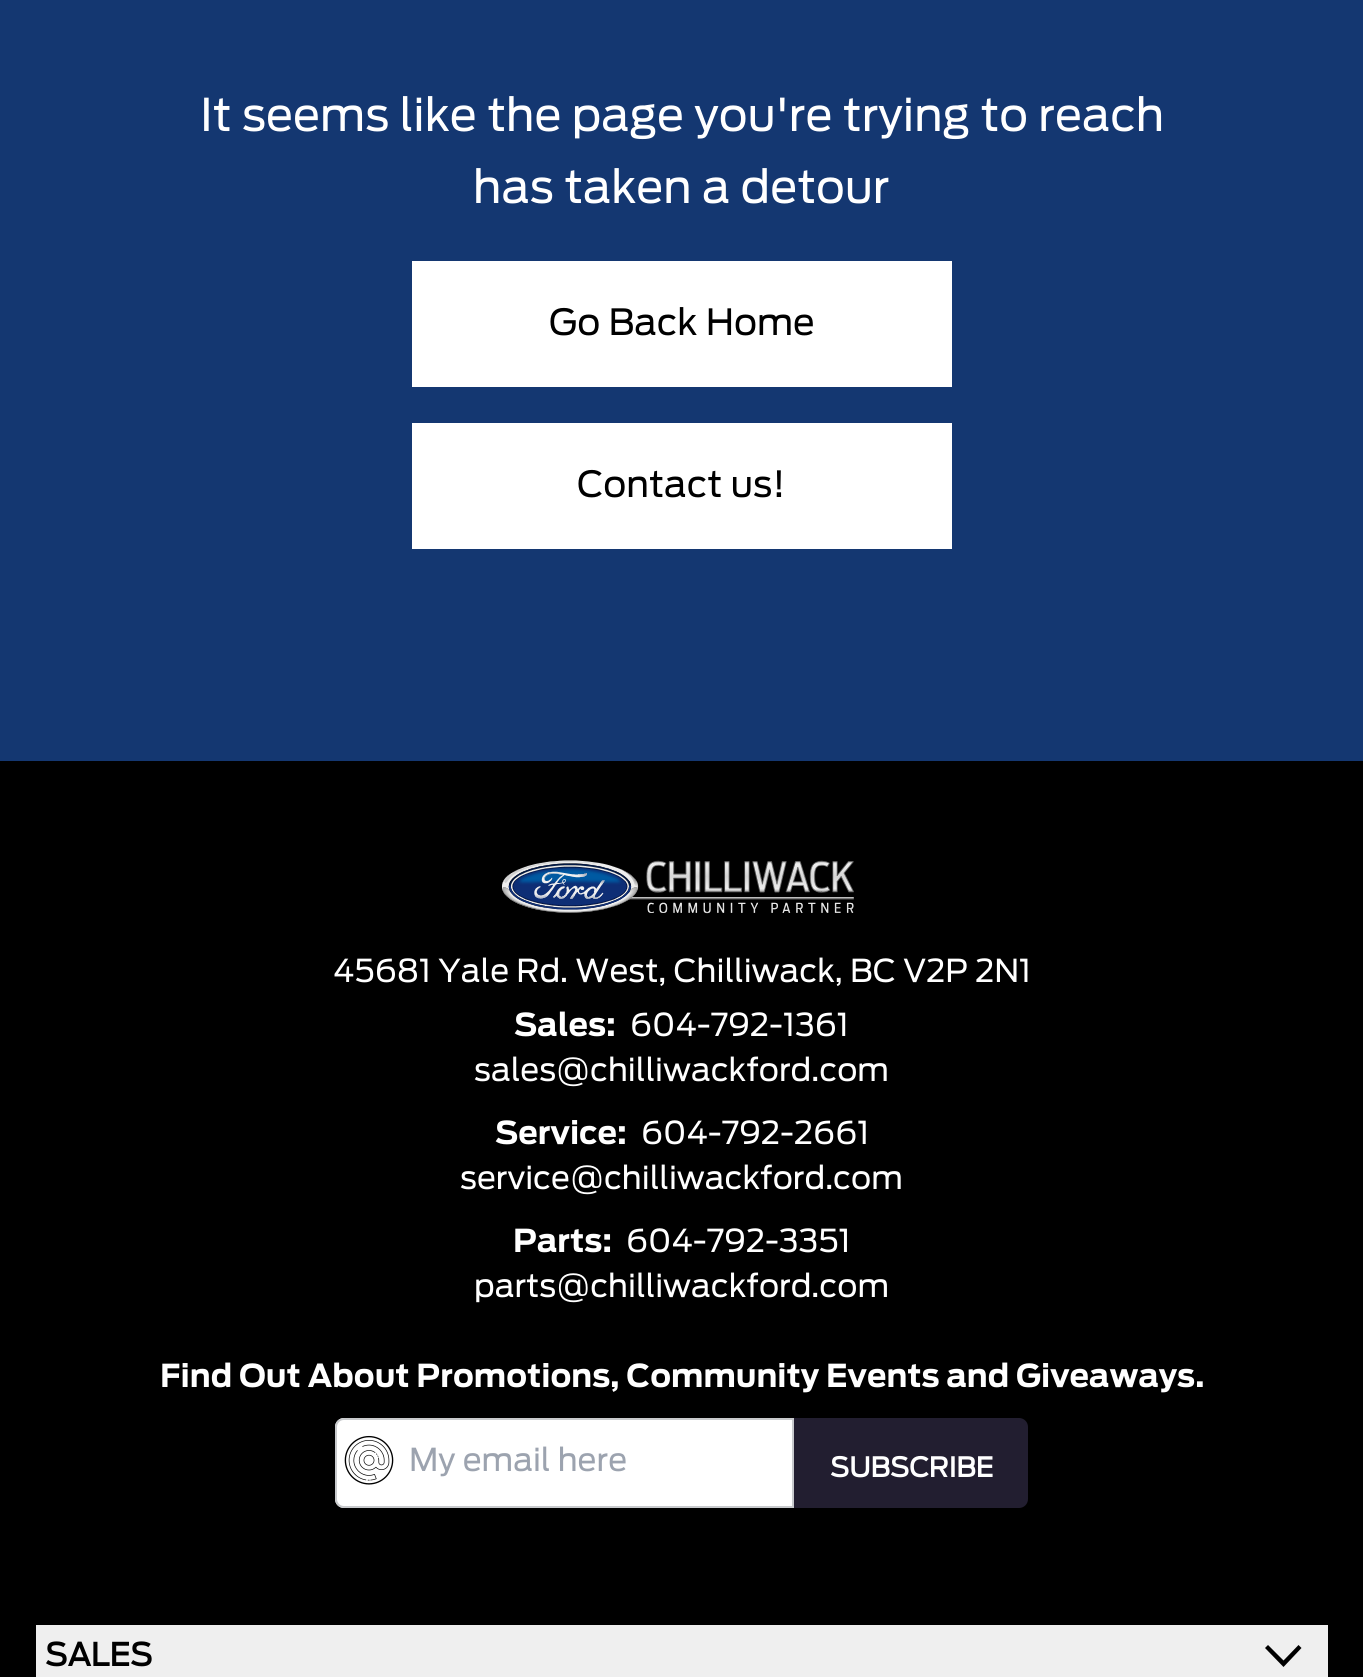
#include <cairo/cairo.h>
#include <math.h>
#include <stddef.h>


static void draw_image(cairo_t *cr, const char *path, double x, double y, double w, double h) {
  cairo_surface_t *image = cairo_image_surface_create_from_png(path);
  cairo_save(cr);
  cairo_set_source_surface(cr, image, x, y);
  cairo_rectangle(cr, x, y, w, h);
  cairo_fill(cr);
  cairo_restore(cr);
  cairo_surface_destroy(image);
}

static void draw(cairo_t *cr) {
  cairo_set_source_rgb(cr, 20 / 255.0, 55 / 255.0, 113 / 255.0);
  cairo_paint(cr);
  cairo_set_source_rgb(cr, 1, 1, 1);
  cairo_rectangle(cr, 412, 261, 540, 126);
  cairo_fill(cr);
  cairo_rectangle(cr, 412, 423, 540, 126);
  cairo_fill(cr);
  cairo_set_source_rgb(cr, 0, 0, 0);
  cairo_rectangle(cr, 0, 761, 1363, 916);
  cairo_fill(cr);
  draw_image(cr, "images/1.png", 502, 860, 352, 54);
  cairo_set_source_rgb(cr, 1, 1, 1);
  cairo_new_path(cr);
  cairo_move_to(cr, 344, 1418);
  cairo_line_to(cr, 794, 1418);
  cairo_line_to(cr, 794, 1508);
  cairo_line_to(cr, 344, 1508);
  cairo_curve_to(cr, 339, 1508, 335, 1504, 335, 1499);
  cairo_line_to(cr, 335, 1427);
  cairo_curve_to(cr, 335, 1422, 339, 1418, 344, 1418);
  cairo_close_path(cr);
  cairo_fill(cr);
  draw_image(cr, "images/2.png", 344, 1435, 50, 50);
  cairo_new_path(cr);
  cairo_move_to(cr, 344, 1419);
  cairo_line_to(cr, 793, 1419);
  cairo_line_to(cr, 793, 1507);
  cairo_line_to(cr, 344, 1507);
  cairo_curve_to(cr, 339.5, 1507, 336, 1503.5, 336, 1499);
  cairo_line_to(cr, 336, 1427);
  cairo_curve_to(cr, 336, 1422.5, 339.5, 1419, 344, 1419);
  cairo_close_path(cr);
  cairo_set_source_rgb(cr, 200 / 255.0, 202 / 255.0, 205 / 255.0);
  cairo_stroke(cr);
  cairo_set_source_rgb(cr, 34 / 255.0, 30 / 255.0, 48 / 255.0);
  cairo_new_path(cr);
  cairo_move_to(cr, 794, 1418);
  cairo_line_to(cr, 1019, 1418);
  cairo_curve_to(cr, 1024, 1418, 1028, 1422, 1028, 1427);
  cairo_line_to(cr, 1028, 1499);
  cairo_curve_to(cr, 1028, 1504, 1024, 1508, 1019, 1508);
  cairo_line_to(cr, 794, 1508);
  cairo_close_path(cr);
  cairo_fill(cr);
  cairo_set_source_rgb(cr, 239 / 255.0, 239 / 255.0, 239 / 255.0);
  cairo_rectangle(cr, 36, 1625, 1292, 52);
  cairo_fill(cr);
  cairo_set_source_rgb(cr, 0, 0, 0);
  cairo_set_fill_rule(cr, CAIRO_FILL_RULE_EVEN_ODD);
  cairo_new_path(cr);
  cairo_move_to(cr, 1283.5, 1667);
  cairo_line_to(cr, 1265, 1648);
  cairo_line_to(cr, 1268, 1645);
  cairo_line_to(cr, 1283.5, 1660.5);
  cairo_line_to(cr, 1298.5, 1645);
  cairo_line_to(cr, 1301.5, 1648);
  cairo_close_path(cr);
  cairo_fill(cr);
  cairo_select_font_face(cr, "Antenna", CAIRO_FONT_SLANT_NORMAL, CAIRO_FONT_WEIGHT_NORMAL);
  cairo_set_font_size(cr, 45);
  cairo_set_source_rgb(cr, 1, 1, 1);
  cairo_move_to(cr, 200, 131);
  cairo_show_text(cr, "It seems like the page you're trying to reach");
  cairo_move_to(cr, 473, 203);
  cairo_show_text(cr, "has taken a detour");
  cairo_set_font_size(cr, 36);
  cairo_set_source_rgb(cr, 0, 0, 0);
  cairo_move_to(cr, 549, 335);
  cairo_show_text(cr, "Go Back Home");
  cairo_move_to(cr, 577, 497);
  cairo_show_text(cr, "Contact us!");
  cairo_set_font_size(cr, 31.5);
  cairo_set_source_rgb(cr, 1, 1, 1);
  cairo_move_to(cr, 333, 982);
  cairo_show_text(cr, "45681 Yale Rd. West, Chilliwack, BC V2P 2N1");
  cairo_select_font_face(cr, "Antenna", CAIRO_FONT_SLANT_NORMAL, CAIRO_FONT_WEIGHT_BOLD);
  cairo_move_to(cr, 514, 1036);
  cairo_show_text(cr, "Sales:");
  cairo_select_font_face(cr, "Antenna", CAIRO_FONT_SLANT_NORMAL, CAIRO_FONT_WEIGHT_NORMAL);
  cairo_move_to(cr, 630, 1036);
  cairo_show_text(cr, "604-792-1361");
  cairo_move_to(cr, 474, 1081);
  cairo_show_text(cr, "sales@chilliwackford.com");
  cairo_select_font_face(cr, "Antenna", CAIRO_FONT_SLANT_NORMAL, CAIRO_FONT_WEIGHT_BOLD);
  cairo_move_to(cr, 495, 1144);
  cairo_show_text(cr, "Service:");
  cairo_select_font_face(cr, "Antenna", CAIRO_FONT_SLANT_NORMAL, CAIRO_FONT_WEIGHT_NORMAL);
  cairo_move_to(cr, 641, 1144);
  cairo_show_text(cr, "604-792-2661");
  cairo_move_to(cr, 460, 1189);
  cairo_show_text(cr, "service@chilliwackford.com");
  cairo_select_font_face(cr, "Antenna", CAIRO_FONT_SLANT_NORMAL, CAIRO_FONT_WEIGHT_BOLD);
  cairo_move_to(cr, 513, 1252);
  cairo_show_text(cr, "Parts:");
  cairo_select_font_face(cr, "Antenna", CAIRO_FONT_SLANT_NORMAL, CAIRO_FONT_WEIGHT_NORMAL);
  cairo_move_to(cr, 626, 1252);
  cairo_show_text(cr, "604-792-3351");
  cairo_move_to(cr, 474, 1297);
  cairo_show_text(cr, "parts@chilliwackford.com");
  cairo_select_font_face(cr, "Antenna", CAIRO_FONT_SLANT_NORMAL, CAIRO_FONT_WEIGHT_BOLD);
  cairo_move_to(cr, 160, 1387);
  cairo_show_text(cr, "Find Out About Promotions, Community Events and Giveaways.");
  cairo_select_font_face(cr, "Antenna", CAIRO_FONT_SLANT_NORMAL, CAIRO_FONT_WEIGHT_NORMAL);
  cairo_set_source_rgb(cr, 156 / 255.0, 163 / 255.0, 175 / 255.0);
  cairo_move_to(cr, 409, 1471);
  cairo_show_text(cr, "My email here");
  cairo_select_font_face(cr, "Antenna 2", CAIRO_FONT_SLANT_NORMAL, CAIRO_FONT_WEIGHT_BOLD);
  cairo_set_font_size(cr, 27);
  cairo_set_source_rgb(cr, 1, 1, 1);
  cairo_move_to(cr, 830, 1477);
  cairo_show_text(cr, "SUBSCRIBE");
  cairo_set_font_size(cr, 31.5);
  cairo_set_source_rgb(cr, 0, 0, 0);
  cairo_move_to(cr, 45, 1666);
  cairo_show_text(cr, "SALES");
}

int main(void) {
  cairo_surface_t *surface = cairo_image_surface_create(CAIRO_FORMAT_RGB24, 1363, 1677);
  cairo_t *cr = cairo_create(surface);
  cairo_font_options_t *options = cairo_font_options_create();
  cairo_font_options_set_hint_metrics(options, CAIRO_HINT_METRICS_OFF);
  cairo_font_options_set_hint_style(options, CAIRO_HINT_STYLE_NONE);
  cairo_set_font_options(cr, options);
  cairo_set_miter_limit(cr, 4);
  draw(cr);
  cairo_surface_write_to_png(surface, "out.png");
  cairo_font_options_destroy(options);
  cairo_destroy(cr);
  cairo_surface_destroy(surface);
  return 0;
}
